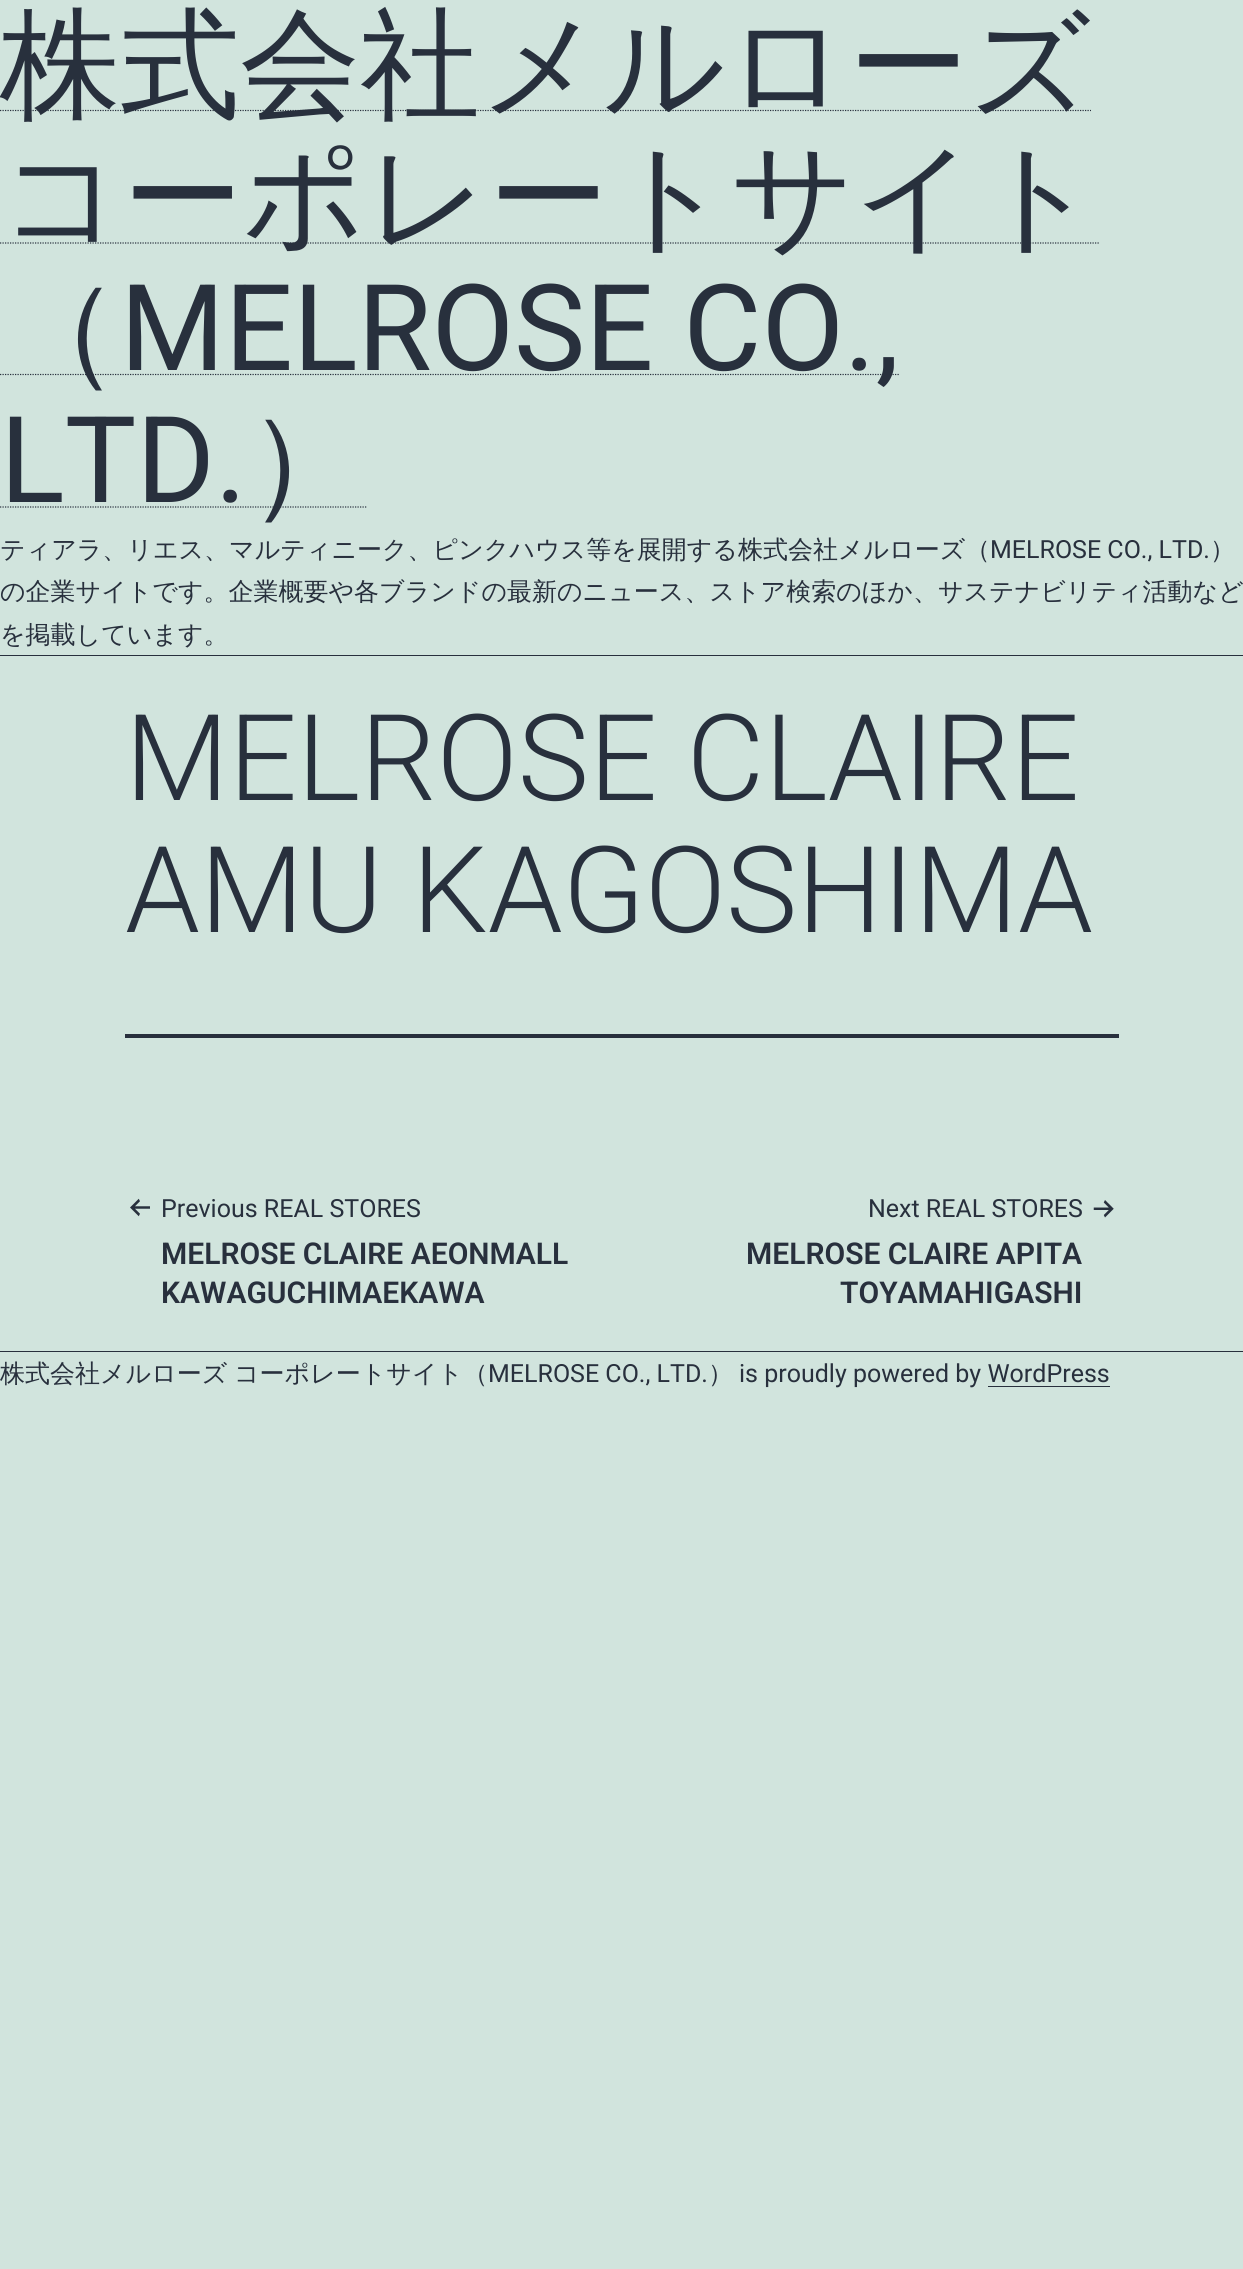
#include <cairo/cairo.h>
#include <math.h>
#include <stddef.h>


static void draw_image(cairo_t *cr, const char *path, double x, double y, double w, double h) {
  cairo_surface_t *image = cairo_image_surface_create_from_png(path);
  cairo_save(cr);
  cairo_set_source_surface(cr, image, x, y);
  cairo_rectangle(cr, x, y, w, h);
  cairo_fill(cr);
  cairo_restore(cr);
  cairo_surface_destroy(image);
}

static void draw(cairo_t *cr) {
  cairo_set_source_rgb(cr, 209 / 255.0, 228 / 255.0, 221 / 255.0);
  cairo_paint(cr);
  cairo_new_path(cr);
  cairo_move_to(cr, 0, 110.5);
  cairo_line_to(cr, 1091, 110.5);
  cairo_set_source_rgb(cr, 40 / 255.0, 48 / 255.0, 61 / 255.0);
  cairo_set_line_width(cr, 1.2);
  cairo_set_dash(cr, (double[]){1.25, 1.25}, 2, 0);
  cairo_stroke(cr);
  cairo_new_path(cr);
  cairo_move_to(cr, 0, 243);
  cairo_line_to(cr, 1099.5, 243);
  cairo_stroke(cr);
  cairo_new_path(cr);
  cairo_move_to(cr, 0, 374.5);
  cairo_line_to(cr, 899, 374.5);
  cairo_stroke(cr);
  cairo_new_path(cr);
  cairo_move_to(cr, 0, 507);
  cairo_line_to(cr, 366.5, 507);
  cairo_stroke(cr);
  cairo_rectangle(cr, 0, 655, 1243, 1);
  cairo_fill(cr);
  cairo_rectangle(cr, 125, 1034, 994, 4);
  cairo_fill(cr);
  draw_image(cr, "images/1.png", 130, 1198, 20, 19);
  draw_image(cr, "images/2.png", 1093, 1200, 21, 18);
  cairo_rectangle(cr, 0, 1351, 1243, 1);
  cairo_fill(cr);
  cairo_rectangle(cr, 988, 1386, 122, 1);
  cairo_fill(cr);
  cairo_select_font_face(cr, "WenQuanYi Zen Hei Medium", CAIRO_FONT_SLANT_NORMAL, CAIRO_FONT_WEIGHT_NORMAL);
  cairo_set_font_size(cr, 120);
  cairo_move_to(cr, 0, 106);
  cairo_show_text(cr, "株式会社メルローズ");
  cairo_move_to(cr, 0, 238);
  cairo_show_text(cr, "コーポレートサイト");
  cairo_move_to(cr, 0, 370);
  cairo_show_text(cr, "（");
  cairo_select_font_face(cr, "Roboto", CAIRO_FONT_SLANT_NORMAL, CAIRO_FONT_WEIGHT_NORMAL);
  cairo_move_to(cr, 120, 370);
  cairo_show_text(cr, "MELROSE CO.,");
  cairo_move_to(cr, 0, 502);
  cairo_show_text(cr, "LTD.");
  cairo_select_font_face(cr, "WenQuanYi Zen Hei Medium", CAIRO_FONT_SLANT_NORMAL, CAIRO_FONT_WEIGHT_NORMAL);
  cairo_move_to(cr, 247, 502);
  cairo_show_text(cr, "）");
  cairo_set_font_size(cr, 25);
  cairo_move_to(cr, 0, 558);
  cairo_show_text(cr, "ティアラ、リエス、マルティニーク、ピンクハウス等を展開する株式会社メルローズ（");
  cairo_select_font_face(cr, "Roboto", CAIRO_FONT_SLANT_NORMAL, CAIRO_FONT_WEIGHT_NORMAL);
  cairo_move_to(cr, 990, 558);
  cairo_show_text(cr, "MELROSE CO., LTD.");
  cairo_select_font_face(cr, "WenQuanYi Zen Hei Medium", CAIRO_FONT_SLANT_NORMAL, CAIRO_FONT_WEIGHT_NORMAL);
  cairo_move_to(cr, 1210, 558);
  cairo_show_text(cr, "）");
  cairo_move_to(cr, 0, 600);
  cairo_show_text(cr, "の企業サイトです。企業概要や各ブランドの最新のニュース、ストア検索のほか、サステナビリティ活動など");
  cairo_move_to(cr, 0, 643);
  cairo_show_text(cr, "を掲載しています。");
  cairo_select_font_face(cr, "Roboto Light", CAIRO_FONT_SLANT_NORMAL, CAIRO_FONT_WEIGHT_NORMAL);
  cairo_set_font_size(cr, 120);
  cairo_move_to(cr, 125, 800);
  cairo_show_text(cr, "MELROSE CLAIRE");
  cairo_move_to(cr, 125, 932);
  cairo_show_text(cr, "AMU KAGOSHIMA");
  cairo_select_font_face(cr, "Roboto", CAIRO_FONT_SLANT_NORMAL, CAIRO_FONT_WEIGHT_NORMAL);
  cairo_set_font_size(cr, 25);
  cairo_move_to(cr, 161, 1217);
  cairo_show_text(cr, "Previous REAL STORES");
  cairo_select_font_face(cr, "Roboto SemiBold", CAIRO_FONT_SLANT_NORMAL, CAIRO_FONT_WEIGHT_NORMAL);
  cairo_set_font_size(cr, 30);
  cairo_move_to(cr, 161, 1264);
  cairo_show_text(cr, "MELROSE CLAIRE AEONMALL");
  cairo_move_to(cr, 161, 1303);
  cairo_show_text(cr, "KAWAGUCHIMAEKAWA");
  cairo_select_font_face(cr, "Roboto", CAIRO_FONT_SLANT_NORMAL, CAIRO_FONT_WEIGHT_NORMAL);
  cairo_set_font_size(cr, 25);
  cairo_move_to(cr, 868, 1217);
  cairo_show_text(cr, "Next REAL STORES");
  cairo_select_font_face(cr, "Roboto SemiBold", CAIRO_FONT_SLANT_NORMAL, CAIRO_FONT_WEIGHT_NORMAL);
  cairo_set_font_size(cr, 30);
  cairo_move_to(cr, 746, 1264);
  cairo_show_text(cr, "MELROSE CLAIRE APITA");
  cairo_move_to(cr, 840, 1303);
  cairo_show_text(cr, "TOYAMAHIGASHI");
  cairo_select_font_face(cr, "WenQuanYi Zen Hei Medium", CAIRO_FONT_SLANT_NORMAL, CAIRO_FONT_WEIGHT_NORMAL);
  cairo_set_font_size(cr, 25);
  cairo_move_to(cr, 0, 1382);
  cairo_show_text(cr, "株式会社メルローズ");
  cairo_move_to(cr, 234, 1382);
  cairo_show_text(cr, "コーポレートサイト（");
  cairo_select_font_face(cr, "Roboto", CAIRO_FONT_SLANT_NORMAL, CAIRO_FONT_WEIGHT_NORMAL);
  cairo_move_to(cr, 488, 1382);
  cairo_show_text(cr, "MELROSE CO., LTD.");
  cairo_select_font_face(cr, "WenQuanYi Zen Hei Medium", CAIRO_FONT_SLANT_NORMAL, CAIRO_FONT_WEIGHT_NORMAL);
  cairo_move_to(cr, 708, 1382);
  cairo_show_text(cr, "）");
  cairo_select_font_face(cr, "Roboto", CAIRO_FONT_SLANT_NORMAL, CAIRO_FONT_WEIGHT_NORMAL);
  cairo_move_to(cr, 739, 1382);
  cairo_show_text(cr, "is proudly powered by WordPress");
}

int main(void) {
  cairo_surface_t *surface = cairo_image_surface_create(CAIRO_FORMAT_RGB24, 1243, 2269);
  cairo_t *cr = cairo_create(surface);
  cairo_font_options_t *options = cairo_font_options_create();
  cairo_font_options_set_hint_metrics(options, CAIRO_HINT_METRICS_OFF);
  cairo_font_options_set_hint_style(options, CAIRO_HINT_STYLE_NONE);
  cairo_set_font_options(cr, options);
  cairo_set_miter_limit(cr, 4);
  draw(cr);
  cairo_surface_write_to_png(surface, "out.png");
  cairo_font_options_destroy(options);
  cairo_destroy(cr);
  cairo_surface_destroy(surface);
  return 0;
}
